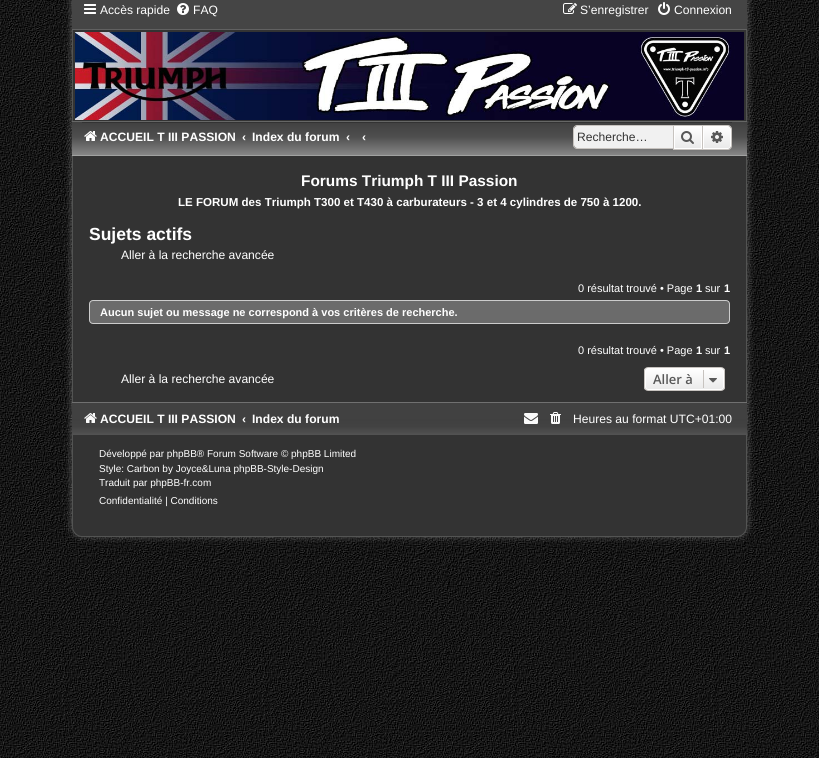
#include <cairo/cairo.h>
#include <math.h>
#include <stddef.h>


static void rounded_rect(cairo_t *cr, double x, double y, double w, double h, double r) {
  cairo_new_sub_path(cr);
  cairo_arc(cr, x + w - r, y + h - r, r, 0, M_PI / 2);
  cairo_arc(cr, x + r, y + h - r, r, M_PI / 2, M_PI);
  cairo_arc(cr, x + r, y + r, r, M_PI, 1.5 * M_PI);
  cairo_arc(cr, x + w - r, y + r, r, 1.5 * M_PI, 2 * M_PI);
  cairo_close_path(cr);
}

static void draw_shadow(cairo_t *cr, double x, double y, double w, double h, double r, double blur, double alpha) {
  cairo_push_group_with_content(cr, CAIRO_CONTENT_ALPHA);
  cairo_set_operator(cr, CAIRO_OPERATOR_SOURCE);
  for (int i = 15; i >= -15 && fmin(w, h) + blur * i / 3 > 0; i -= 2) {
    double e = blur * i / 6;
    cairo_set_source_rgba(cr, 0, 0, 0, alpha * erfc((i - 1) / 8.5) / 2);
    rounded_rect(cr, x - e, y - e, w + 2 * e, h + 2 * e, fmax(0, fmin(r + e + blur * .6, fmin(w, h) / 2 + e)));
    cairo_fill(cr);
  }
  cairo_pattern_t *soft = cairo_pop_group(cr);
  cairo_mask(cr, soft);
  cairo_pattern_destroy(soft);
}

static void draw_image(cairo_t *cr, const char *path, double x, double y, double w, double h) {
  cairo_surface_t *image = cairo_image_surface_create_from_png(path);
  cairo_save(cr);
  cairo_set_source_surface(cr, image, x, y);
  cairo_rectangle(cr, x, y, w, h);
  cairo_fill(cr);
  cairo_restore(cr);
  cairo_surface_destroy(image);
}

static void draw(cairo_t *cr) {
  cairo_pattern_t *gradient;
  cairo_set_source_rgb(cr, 1, 1, 1);
  cairo_paint(cr);
  draw_image(cr, "images/1.png", 0, 552, 819, 206);
  draw_image(cr, "images/2.png", 0, 0, 819, 552);
  draw_shadow(cr, 70, -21, 679, 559, 12, 3, 0.2);
  cairo_set_source_rgb(cr, 51 / 255.0, 51 / 255.0, 51 / 255.0);
  cairo_new_path(cr);
  cairo_move_to(cr, 72.5, -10.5);
  cairo_line_to(cr, 746.5, -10.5);
  cairo_line_to(cr, 746.5, 527);
  cairo_curve_to(cr, 746.5, 532, 742, 536.5, 737, 536.5);
  cairo_line_to(cr, 82, 536.5);
  cairo_curve_to(cr, 77, 536.5, 72.5, 532, 72.5, 527);
  cairo_close_path(cr);
  cairo_fill_preserve(cr);
  cairo_set_source_rgb(cr, 83 / 255.0, 84 / 255.0, 83 / 255.0);
  cairo_set_line_width(cr, 1);
  cairo_stroke(cr);
  cairo_set_source_rgb(cr, 69 / 255.0, 69 / 255.0, 69 / 255.0);
  cairo_rectangle(cr, 72, 0, 675, 29);
  cairo_fill(cr);
  draw_image(cr, "images/3.png", 84, 4, 12, 10);
  draw_image(cr, "images/4.png", 177, 3, 12, 12);
  draw_image(cr, "images/5.png", 563, 3, 14, 11);
  draw_image(cr, "images/6.png", 658, 2, 12, 13);
  cairo_set_source_rgb(cr, 97 / 255.0, 97 / 255.0, 97 / 255.0);
  cairo_rectangle(cr, 72, 29, 675, 1);
  cairo_fill(cr);
  draw_image(cr, "images/7.png", 75, 32, 669, 88);
  gradient = cairo_pattern_create_linear(410, 122, 410, 173);
  cairo_pattern_add_color_stop_rgba(gradient, 0, 65 / 255.0, 65 / 255.0, 65 / 255.0, 1);
  cairo_pattern_add_color_stop_rgba(gradient, 0.29, 78 / 255.0, 78 / 255.0, 78 / 255.0, 1);
  cairo_pattern_add_color_stop_rgba(gradient, 0.65, 135 / 255.0, 135 / 255.0, 135 / 255.0, 1);
  cairo_pattern_add_color_stop_rgba(gradient, 1, 250 / 255.0, 250 / 255.0, 250 / 255.0, 1);
  cairo_set_source(cr, gradient);
  cairo_pattern_destroy(gradient);
  cairo_rectangle(cr, 72, 122, 675, 33);
  cairo_fill(cr);
  cairo_set_source_rgb(cr, 102 / 255.0, 103 / 255.0, 102 / 255.0);
  cairo_rectangle(cr, 72, 121, 675, 1);
  cairo_fill(cr);
  cairo_set_source_rgb(cr, 161 / 255.0, 162 / 255.0, 161 / 255.0);
  cairo_rectangle(cr, 72, 155, 675, 1);
  cairo_fill(cr);
  cairo_set_source_rgb(cr, 51 / 255.0, 51 / 255.0, 51 / 255.0);
  cairo_rectangle(cr, 82, 122, 650, 1);
  cairo_fill(cr);
  draw_image(cr, "images/8.png", 84, 131, 13, 10);
  cairo_set_source_rgb(cr, 241 / 255.0, 241 / 255.0, 241 / 255.0);
  cairo_new_path(cr);
  cairo_move_to(cr, 577, 126);
  cairo_line_to(cr, 673, 126);
  cairo_line_to(cr, 673, 148);
  cairo_line_to(cr, 577, 148);
  cairo_curve_to(cr, 575.5, 148, 574, 146.5, 574, 145);
  cairo_line_to(cr, 574, 129);
  cairo_curve_to(cr, 574, 127.5, 575.5, 126, 577, 126);
  cairo_close_path(cr);
  cairo_fill(cr);
  cairo_set_source_rgb(cr, 199 / 255.0, 195 / 255.0, 191 / 255.0);
  cairo_set_fill_rule(cr, CAIRO_FILL_RULE_EVEN_ODD);
  cairo_new_path(cr);
  cairo_move_to(cr, 577, 125);
  cairo_line_to(cr, 673, 125);
  cairo_line_to(cr, 673, 149);
  cairo_line_to(cr, 577, 149);
  cairo_curve_to(cr, 575, 149, 573, 147, 573, 145);
  cairo_line_to(cr, 573, 129);
  cairo_curve_to(cr, 573, 127, 575, 125, 577, 125);
  cairo_close_path(cr);
  cairo_move_to(cr, 577, 126);
  cairo_line_to(cr, 673, 126);
  cairo_line_to(cr, 673, 148);
  cairo_line_to(cr, 577, 148);
  cairo_curve_to(cr, 575, 148, 574, 147, 574, 145);
  cairo_line_to(cr, 574, 129);
  cairo_curve_to(cr, 574, 127, 575, 126, 577, 126);
  cairo_close_path(cr);
  cairo_fill(cr);
  gradient = cairo_pattern_create_linear(688, 126, 688, 149);
  cairo_pattern_add_color_stop_rgba(gradient, 0, 1, 1, 1, 1);
  cairo_pattern_add_color_stop_rgba(gradient, 1, 233 / 255.0, 233 / 255.0, 233 / 255.0, 1);
  cairo_set_source(cr, gradient);
  cairo_pattern_destroy(gradient);
  cairo_rectangle(cr, 675, 127, 26, 21);
  cairo_fill(cr);
  cairo_rectangle(cr, 674.5, 126.5, 27, 22);
  cairo_set_source_rgb(cr, 1, 1, 1);
  cairo_stroke(cr);
  cairo_rectangle(cr, 673.5, 125.5, 29, 24);
  cairo_set_source_rgb(cr, 199 / 255.0, 195 / 255.0, 191 / 255.0);
  cairo_stroke(cr);
  draw_image(cr, "images/9.png", 681, 131, 13, 13);
  gradient = cairo_pattern_create_linear(717, 126, 717, 149);
  cairo_pattern_add_color_stop_rgba(gradient, 0, 1, 1, 1, 1);
  cairo_pattern_add_color_stop_rgba(gradient, 1, 233 / 255.0, 233 / 255.0, 233 / 255.0, 1);
  cairo_set_source(cr, gradient);
  cairo_pattern_destroy(gradient);
  cairo_new_path(cr);
  cairo_move_to(cr, 703.5, 126.5);
  cairo_line_to(cr, 728, 126.5);
  cairo_curve_to(cr, 729.5, 126.5, 730.5, 127.5, 730.5, 129);
  cairo_line_to(cr, 730.5, 146);
  cairo_curve_to(cr, 730.5, 147.5, 729.5, 148.5, 728, 148.5);
  cairo_line_to(cr, 703.5, 148.5);
  cairo_close_path(cr);
  cairo_fill_preserve(cr);
  cairo_set_source_rgb(cr, 1, 1, 1);
  cairo_stroke(cr);
  cairo_set_source_rgb(cr, 199 / 255.0, 195 / 255.0, 191 / 255.0);
  cairo_new_path(cr);
  cairo_move_to(cr, 703, 125);
  cairo_line_to(cr, 728, 125);
  cairo_curve_to(cr, 730, 125, 732, 127, 732, 129);
  cairo_line_to(cr, 732, 146);
  cairo_curve_to(cr, 732, 148, 730, 150, 728, 150);
  cairo_line_to(cr, 703, 150);
  cairo_close_path(cr);
  cairo_move_to(cr, 703, 126);
  cairo_line_to(cr, 728, 126);
  cairo_curve_to(cr, 729.5, 126, 731, 127.5, 731, 129);
  cairo_line_to(cr, 731, 146);
  cairo_curve_to(cr, 731, 147.5, 729.5, 149, 728, 149);
  cairo_line_to(cr, 703, 149);
  cairo_close_path(cr);
  cairo_fill(cr);
  draw_image(cr, "images/10.png", 711, 131, 12, 12);
  cairo_set_source_rgb(cr, 107 / 255.0, 107 / 255.0, 107 / 255.0);
  rounded_rect(cr, 89.5, 300.5, 640, 23, 3.5);
  cairo_fill_preserve(cr);
  cairo_set_source_rgb(cr, 204 / 255.0, 204 / 255.0, 204 / 255.0);
  cairo_stroke(cr);
  cairo_save(cr);
  cairo_set_fill_rule(cr, CAIRO_FILL_RULE_WINDING);
  rounded_rect(cr, 644, 367, 81, 24, 4);
  cairo_clip(cr);
  gradient = cairo_pattern_create_linear(685, 368, 685, 390);
  cairo_pattern_add_color_stop_rgba(gradient, 0, 1, 1, 1, 1);
  cairo_pattern_add_color_stop_rgba(gradient, 1, 233 / 255.0, 233 / 255.0, 233 / 255.0, 1);
  cairo_set_source(cr, gradient);
  cairo_pattern_destroy(gradient);
  cairo_rectangle(cr, 644, 368, 81, 22);
  cairo_fill(cr);
  cairo_restore(cr);
  rounded_rect(cr, 645.5, 368.5, 78, 21, 2.5);
  cairo_set_source_rgb(cr, 1, 1, 1);
  cairo_stroke(cr);
  rounded_rect(cr, 644.5, 367.5, 80, 23, 3.5);
  cairo_set_source_rgb(cr, 199 / 255.0, 195 / 255.0, 191 / 255.0);
  cairo_stroke(cr);
  cairo_rectangle(cr, 703, 370, 1, 18);
  cairo_fill(cr);
  draw_image(cr, "images/11.png", 709, 378, 8, 5);
  draw_image(cr, "images/12.png", 72, 403, 675, 32);
  cairo_set_source_rgb(cr, 112 / 255.0, 112 / 255.0, 112 / 255.0);
  cairo_rectangle(cr, 72, 402, 675, 1);
  cairo_fill(cr);
  draw_image(cr, "images/13.png", 84, 413, 13, 10);
  draw_image(cr, "images/14.png", 524, 413, 14, 11);
  draw_image(cr, "images/15.png", 550, 412, 11, 12);
  cairo_select_font_face(cr, "Liberation Sans", CAIRO_FONT_SLANT_NORMAL, CAIRO_FONT_WEIGHT_NORMAL);
  cairo_set_font_size(cr, 12.1);
  cairo_set_source_rgb(cr, 1, 1, 1);
  cairo_move_to(cr, 100, 14);
  cairo_show_text(cr, "Accès rapide");
  cairo_move_to(cr, 193, 14);
  cairo_show_text(cr, "FAQ");
  cairo_move_to(cr, 580, 14);
  cairo_show_text(cr, "S’enregistrer");
  cairo_move_to(cr, 674, 14);
  cairo_show_text(cr, "Connexion");
  cairo_select_font_face(cr, "Liberation Sans", CAIRO_FONT_SLANT_NORMAL, CAIRO_FONT_WEIGHT_BOLD);
  cairo_move_to(cr, 100, 141);
  cairo_show_text(cr, "ACCUEIL T III PASSION");
  cairo_move_to(cr, 242, 141);
  cairo_show_text(cr, "‹");
  cairo_move_to(cr, 252, 141);
  cairo_show_text(cr, "Index du forum");
  cairo_move_to(cr, 346, 141);
  cairo_show_text(cr, "‹");
  cairo_move_to(cr, 362, 141);
  cairo_show_text(cr, "‹");
  cairo_select_font_face(cr, "Liberation Sans", CAIRO_FONT_SLANT_NORMAL, CAIRO_FONT_WEIGHT_NORMAL);
  cairo_set_source_rgb(cr, 51 / 255.0, 51 / 255.0, 51 / 255.0);
  cairo_move_to(cr, 577, 141);
  cairo_show_text(cr, "Recherche…");
  cairo_select_font_face(cr, "Liberation Sans", CAIRO_FONT_SLANT_NORMAL, CAIRO_FONT_WEIGHT_BOLD);
  cairo_set_font_size(cr, 15.4);
  cairo_set_source_rgb(cr, 1, 1, 1);
  cairo_move_to(cr, 301, 186);
  cairo_show_text(cr, "Forums Triumph T III Passion");
  cairo_set_font_size(cr, 11.55);
  cairo_move_to(cr, 178, 206);
  cairo_show_text(cr, "LE FORUM des Triumph T300 et T430 à carburateurs - 3 et 4 cylindres de 750 à 1200.");
  cairo_set_font_size(cr, 17.5);
  cairo_move_to(cr, 89, 240);
  cairo_show_text(cr, "Sujets actifs");
  cairo_select_font_face(cr, "Liberation Sans", CAIRO_FONT_SLANT_NORMAL, CAIRO_FONT_WEIGHT_NORMAL);
  cairo_set_font_size(cr, 12.1);
  cairo_move_to(cr, 121, 259);
  cairo_show_text(cr, "Aller à la recherche avancée");
  cairo_set_font_size(cr, 11);
  cairo_move_to(cr, 578, 292);
  cairo_show_text(cr, "0 résultat trouvé • Page");
  cairo_select_font_face(cr, "Liberation Sans", CAIRO_FONT_SLANT_NORMAL, CAIRO_FONT_WEIGHT_BOLD);
  cairo_move_to(cr, 696, 292);
  cairo_show_text(cr, "1");
  cairo_select_font_face(cr, "Liberation Sans", CAIRO_FONT_SLANT_NORMAL, CAIRO_FONT_WEIGHT_NORMAL);
  cairo_move_to(cr, 705, 292);
  cairo_show_text(cr, "sur");
  cairo_select_font_face(cr, "Liberation Sans", CAIRO_FONT_SLANT_NORMAL, CAIRO_FONT_WEIGHT_BOLD);
  cairo_move_to(cr, 724, 292);
  cairo_show_text(cr, "1");
  cairo_move_to(cr, 100, 316);
  cairo_show_text(cr, "Aucun sujet ou message ne correspond à vos critères de recherche.");
  cairo_select_font_face(cr, "Liberation Sans", CAIRO_FONT_SLANT_NORMAL, CAIRO_FONT_WEIGHT_NORMAL);
  cairo_move_to(cr, 578, 354);
  cairo_show_text(cr, "0 résultat trouvé • Page");
  cairo_select_font_face(cr, "Liberation Sans", CAIRO_FONT_SLANT_NORMAL, CAIRO_FONT_WEIGHT_BOLD);
  cairo_move_to(cr, 696, 354);
  cairo_show_text(cr, "1");
  cairo_select_font_face(cr, "Liberation Sans", CAIRO_FONT_SLANT_NORMAL, CAIRO_FONT_WEIGHT_NORMAL);
  cairo_move_to(cr, 705, 354);
  cairo_show_text(cr, "sur");
  cairo_select_font_face(cr, "Liberation Sans", CAIRO_FONT_SLANT_NORMAL, CAIRO_FONT_WEIGHT_BOLD);
  cairo_move_to(cr, 724, 354);
  cairo_show_text(cr, "1");
  cairo_select_font_face(cr, "Liberation Sans", CAIRO_FONT_SLANT_NORMAL, CAIRO_FONT_WEIGHT_NORMAL);
  cairo_set_font_size(cr, 12.1);
  cairo_move_to(cr, 121, 383);
  cairo_show_text(cr, "Aller à la recherche avancée");
  cairo_select_font_face(cr, "Open Sans SemiBold", CAIRO_FONT_SLANT_NORMAL, CAIRO_FONT_WEIGHT_NORMAL);
  cairo_set_font_size(cr, 13);
  cairo_set_source_rgb(cr, 88 / 255.0, 88 / 255.0, 88 / 255.0);
  cairo_move_to(cr, 653, 384);
  cairo_show_text(cr, "Aller à");
  cairo_select_font_face(cr, "Liberation Sans", CAIRO_FONT_SLANT_NORMAL, CAIRO_FONT_WEIGHT_BOLD);
  cairo_set_font_size(cr, 12.1);
  cairo_set_source_rgb(cr, 1, 1, 1);
  cairo_move_to(cr, 100, 423);
  cairo_show_text(cr, "ACCUEIL T III PASSION");
  cairo_move_to(cr, 242, 423);
  cairo_show_text(cr, "‹");
  cairo_move_to(cr, 252, 423);
  cairo_show_text(cr, "Index du forum");
  cairo_select_font_face(cr, "Liberation Sans", CAIRO_FONT_SLANT_NORMAL, CAIRO_FONT_WEIGHT_NORMAL);
  cairo_move_to(cr, 573, 423);
  cairo_show_text(cr, "Heures au format UTC+01:00");
  cairo_set_font_size(cr, 10);
  cairo_move_to(cr, 99, 457);
  cairo_show_text(cr, "Développé par phpBB® Forum Software © phpBB Limited");
  cairo_move_to(cr, 99, 472);
  cairo_show_text(cr, "Style: Carbon by Joyce&Luna phpBB-Style-Design");
  cairo_move_to(cr, 99, 486);
  cairo_show_text(cr, "Traduit par phpBB-fr.com");
  cairo_move_to(cr, 99, 504);
  cairo_show_text(cr, "Confidentialité | Conditions");
}

int main(void) {
  cairo_surface_t *surface = cairo_image_surface_create(CAIRO_FORMAT_RGB24, 819, 758);
  cairo_t *cr = cairo_create(surface);
  cairo_font_options_t *options = cairo_font_options_create();
  cairo_font_options_set_hint_metrics(options, CAIRO_HINT_METRICS_OFF);
  cairo_font_options_set_hint_style(options, CAIRO_HINT_STYLE_NONE);
  cairo_set_font_options(cr, options);
  cairo_set_miter_limit(cr, 4);
  draw(cr);
  cairo_surface_write_to_png(surface, "out.png");
  cairo_font_options_destroy(options);
  cairo_destroy(cr);
  cairo_surface_destroy(surface);
  return 0;
}
